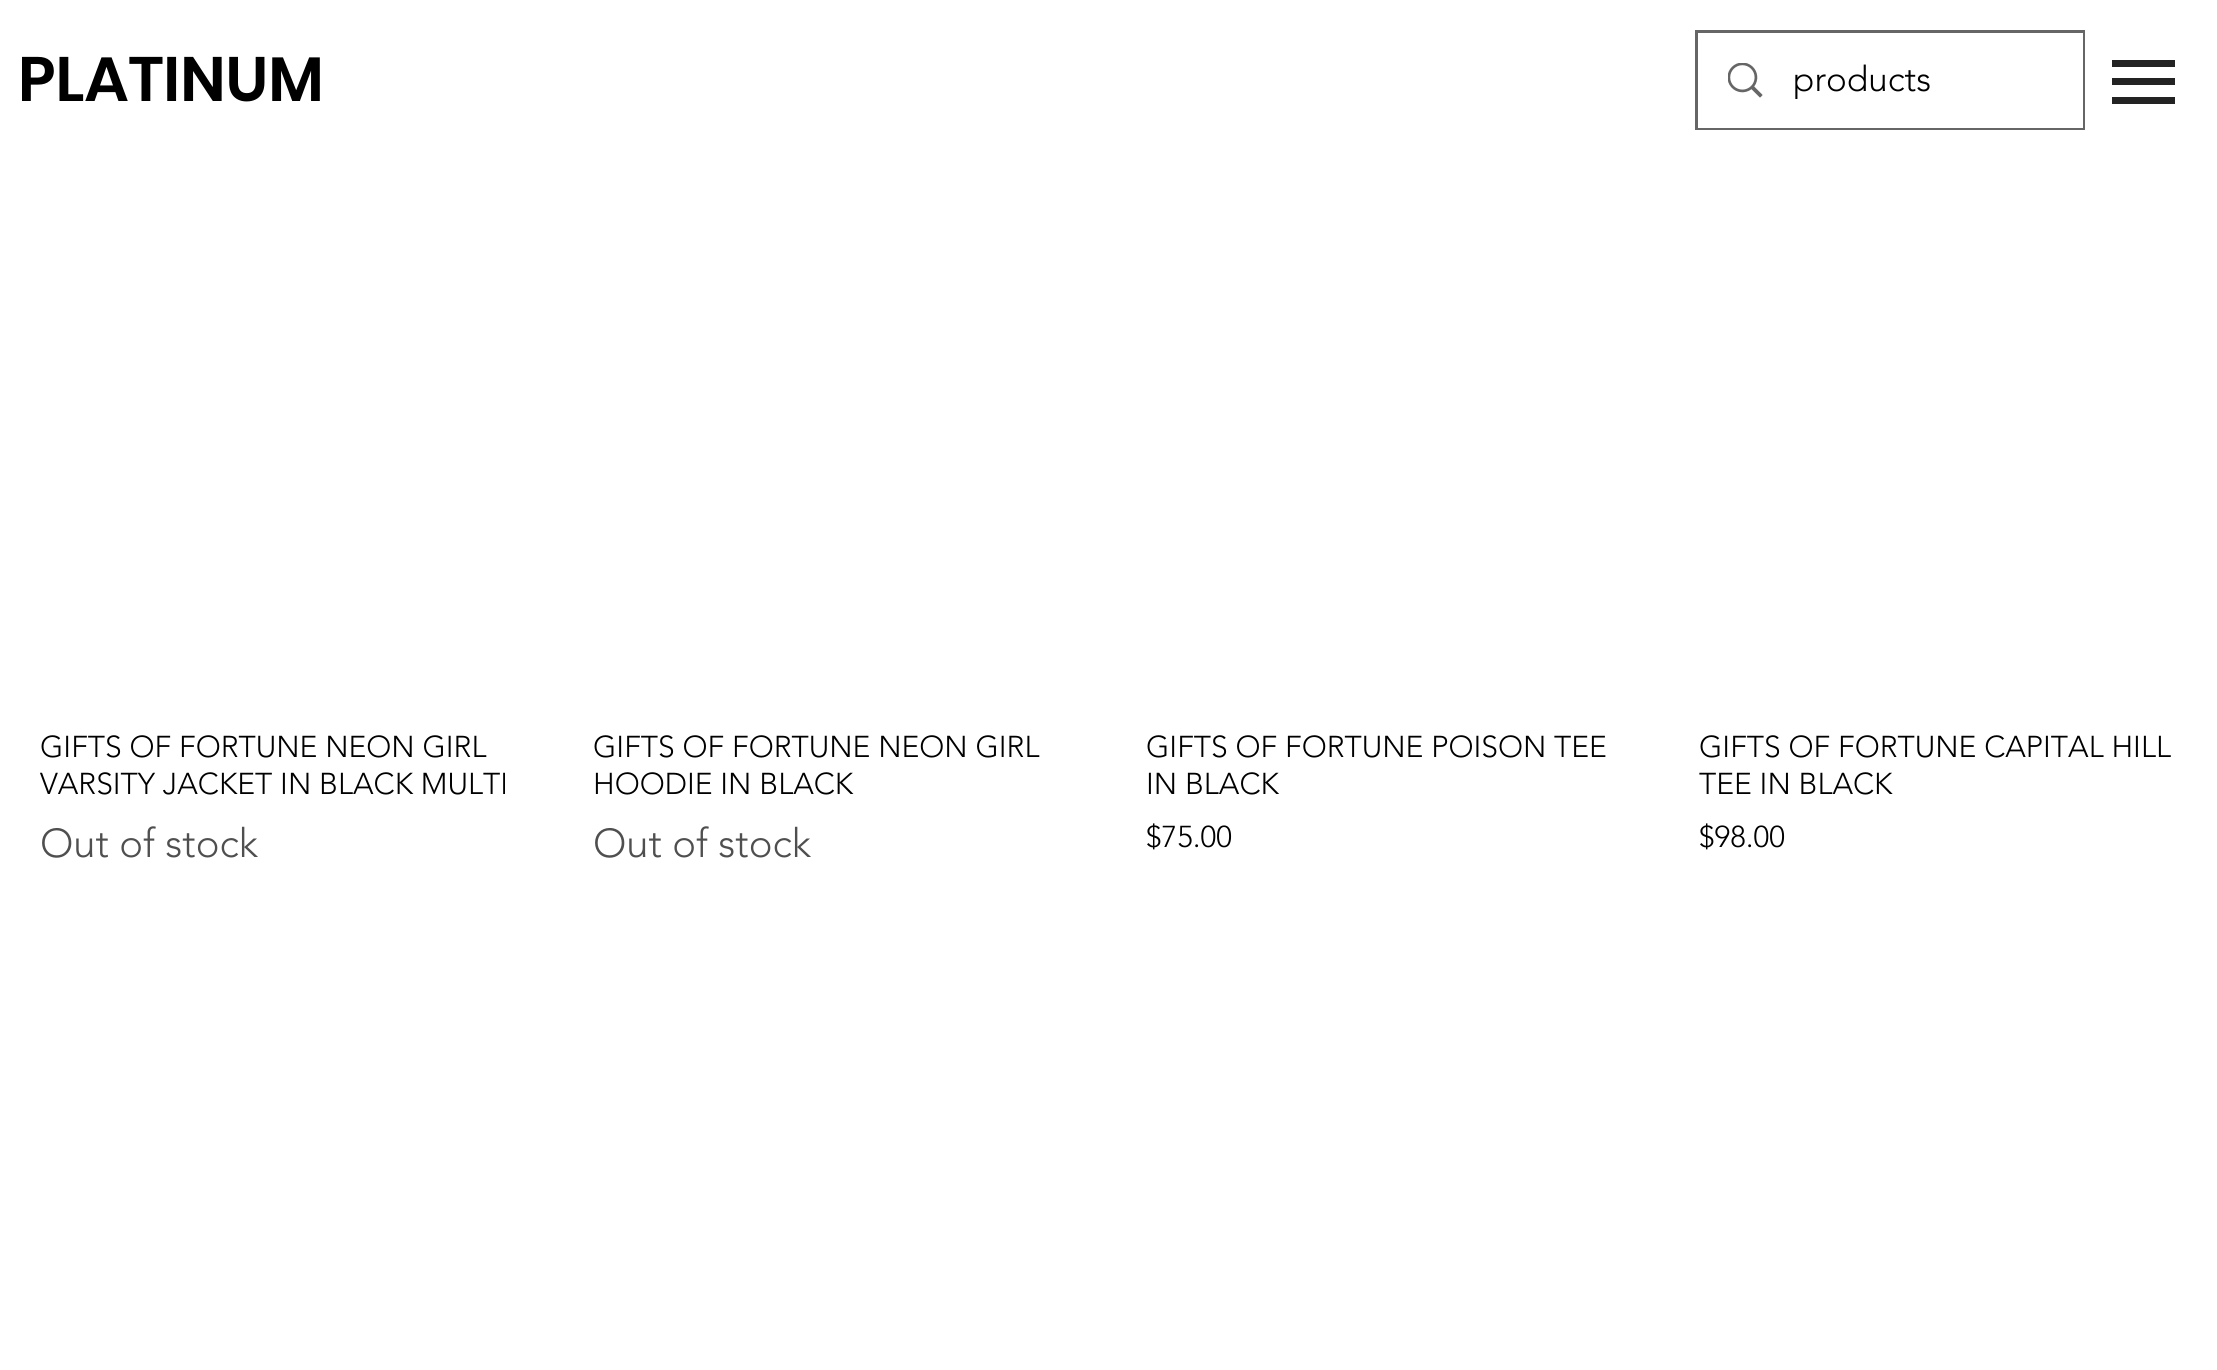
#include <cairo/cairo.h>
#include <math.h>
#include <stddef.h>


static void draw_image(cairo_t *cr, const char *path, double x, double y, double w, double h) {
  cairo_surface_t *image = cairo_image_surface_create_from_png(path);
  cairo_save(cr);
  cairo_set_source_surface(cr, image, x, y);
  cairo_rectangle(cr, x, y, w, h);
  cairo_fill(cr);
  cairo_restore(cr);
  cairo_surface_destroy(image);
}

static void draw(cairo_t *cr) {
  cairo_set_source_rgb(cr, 1, 1, 1);
  cairo_paint(cr);
  cairo_rectangle(cr, 1696.5, 31.5, 387, 97);
  cairo_set_source_rgb(cr, 102 / 255.0, 102 / 255.0, 102 / 255.0);
  cairo_set_line_width(cr, 3);
  cairo_stroke(cr);
  cairo_set_source_rgb(cr, 1, 1, 1);
  cairo_rectangle(cr, 1698, 33, 385, 95);
  cairo_fill(cr);
  draw_image(cr, "images/1.png", 1728, 63, 35, 35);
  cairo_set_source_rgb(cr, 36 / 255.0, 35 / 255.0, 35 / 255.0);
  cairo_rectangle(cr, 2112, 60, 63, 7);
  cairo_fill(cr);
  cairo_rectangle(cr, 2112, 78, 63, 7);
  cairo_fill(cr);
  cairo_rectangle(cr, 2112, 97, 63, 7);
  cairo_fill(cr);
  cairo_select_font_face(cr, "Poppins SemiBold", CAIRO_FONT_SLANT_NORMAL, CAIRO_FONT_WEIGHT_NORMAL);
  cairo_set_font_size(cr, 62.5);
  cairo_set_source_rgb(cr, 0, 0, 0);
  cairo_move_to(cr, 18, 101);
  cairo_show_text(cr, "PLATINUM");
  cairo_select_font_face(cr, "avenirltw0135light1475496 Light", CAIRO_FONT_SLANT_NORMAL, CAIRO_FONT_WEIGHT_NORMAL);
  cairo_set_font_size(cr, 35);
  cairo_move_to(cr, 1793, 91);
  cairo_show_text(cr, "products");
  cairo_set_font_size(cr, 30);
  cairo_move_to(cr, 40, 757);
  cairo_show_text(cr, "GIFTS OF FORTUNE NEON GIRL");
  cairo_move_to(cr, 40, 794);
  cairo_show_text(cr, "VARSITY JACKET IN BLACK MULTI");
  cairo_set_font_size(cr, 40);
  cairo_set_source_rgb(cr, 79 / 255.0, 79 / 255.0, 79 / 255.0);
  cairo_move_to(cr, 40, 857);
  cairo_show_text(cr, "Out of stock");
  cairo_set_font_size(cr, 30);
  cairo_set_source_rgb(cr, 0, 0, 0);
  cairo_move_to(cr, 593, 757);
  cairo_show_text(cr, "GIFTS OF FORTUNE NEON GIRL");
  cairo_move_to(cr, 593, 794);
  cairo_show_text(cr, "HOODIE IN BLACK");
  cairo_set_font_size(cr, 40);
  cairo_set_source_rgb(cr, 79 / 255.0, 79 / 255.0, 79 / 255.0);
  cairo_move_to(cr, 593, 857);
  cairo_show_text(cr, "Out of stock");
  cairo_set_font_size(cr, 30);
  cairo_set_source_rgb(cr, 0, 0, 0);
  cairo_move_to(cr, 1146, 757);
  cairo_show_text(cr, "GIFTS OF FORTUNE POISON TEE");
  cairo_move_to(cr, 1146, 794);
  cairo_show_text(cr, "IN BLACK");
  cairo_move_to(cr, 1146, 847);
  cairo_show_text(cr, "$75.00");
  cairo_move_to(cr, 1699, 757);
  cairo_show_text(cr, "GIFTS OF FORTUNE CAPITAL HILL");
  cairo_move_to(cr, 1699, 794);
  cairo_show_text(cr, "TEE IN BLACK");
  cairo_move_to(cr, 1699, 847);
  cairo_show_text(cr, "$98.00");
}

int main(void) {
  cairo_surface_t *surface = cairo_image_surface_create(CAIRO_FORMAT_RGB24, 2217, 1370);
  cairo_t *cr = cairo_create(surface);
  cairo_font_options_t *options = cairo_font_options_create();
  cairo_font_options_set_hint_metrics(options, CAIRO_HINT_METRICS_OFF);
  cairo_font_options_set_hint_style(options, CAIRO_HINT_STYLE_NONE);
  cairo_set_font_options(cr, options);
  cairo_set_miter_limit(cr, 4);
  draw(cr);
  cairo_surface_write_to_png(surface, "out.png");
  cairo_font_options_destroy(options);
  cairo_destroy(cr);
  cairo_surface_destroy(surface);
  return 0;
}
